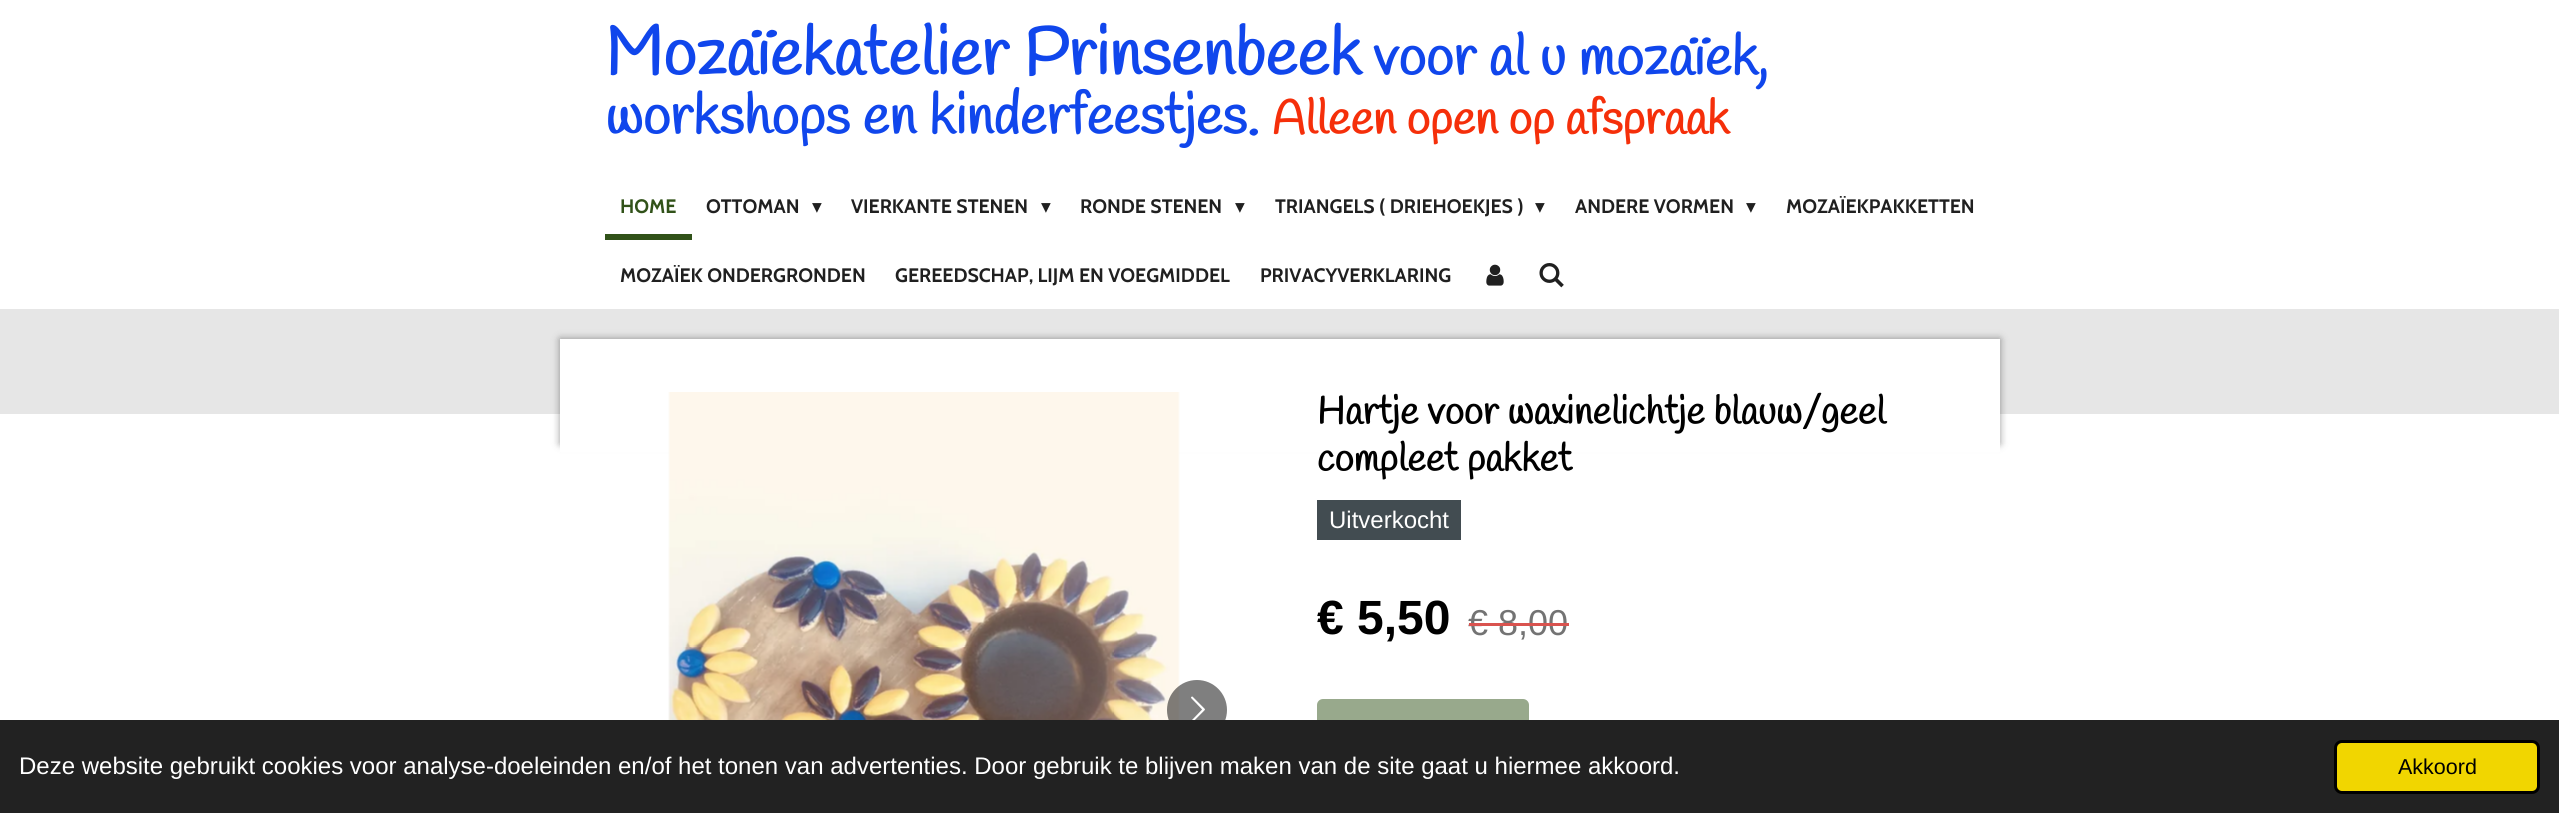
#include <cairo/cairo.h>
#include <math.h>
#include <stddef.h>


static void rounded_rect(cairo_t *cr, double x, double y, double w, double h, double r) {
  cairo_new_sub_path(cr);
  cairo_arc(cr, x + w - r, y + h - r, r, 0, M_PI / 2);
  cairo_arc(cr, x + r, y + h - r, r, M_PI / 2, M_PI);
  cairo_arc(cr, x + r, y + r, r, M_PI, 1.5 * M_PI);
  cairo_arc(cr, x + w - r, y + r, r, 1.5 * M_PI, 2 * M_PI);
  cairo_close_path(cr);
}

static void draw_shadow(cairo_t *cr, double x, double y, double w, double h, double r, double blur, double alpha) {
  cairo_push_group_with_content(cr, CAIRO_CONTENT_ALPHA);
  cairo_set_operator(cr, CAIRO_OPERATOR_SOURCE);
  for (int i = 15; i >= -15 && fmin(w, h) + blur * i / 3 > 0; i -= 2) {
    double e = blur * i / 6;
    cairo_set_source_rgba(cr, 0, 0, 0, alpha * erfc((i - 1) / 8.5) / 2);
    rounded_rect(cr, x - e, y - e, w + 2 * e, h + 2 * e, fmax(0, fmin(r + e + blur * .6, fmin(w, h) / 2 + e)));
    cairo_fill(cr);
  }
  cairo_pattern_t *soft = cairo_pop_group(cr);
  cairo_mask(cr, soft);
  cairo_pattern_destroy(soft);
}

static void draw_image(cairo_t *cr, const char *path, double x, double y, double w, double h) {
  cairo_surface_t *image = cairo_image_surface_create_from_png(path);
  cairo_save(cr);
  cairo_set_source_surface(cr, image, x, y);
  cairo_rectangle(cr, x, y, w, h);
  cairo_fill(cr);
  cairo_restore(cr);
  cairo_surface_destroy(image);
}

static void draw(cairo_t *cr) {
  cairo_set_source_rgb(cr, 1, 1, 1);
  cairo_paint(cr);
  cairo_set_source_rgb(cr, 49 / 255.0, 82 / 255.0, 25 / 255.0);
  cairo_rectangle(cr, 605, 234, 87, 6);
  cairo_fill(cr);
  draw_image(cr, "images/1.png", 1486, 264, 18, 22);
  draw_image(cr, "images/2.png", 1539, 263, 25, 25);
  cairo_set_source_rgb(cr, 230 / 255.0, 230 / 255.0, 230 / 255.0);
  cairo_rectangle(cr, 0, 309, 2559, 105);
  cairo_fill(cr);
  cairo_set_source_rgb(cr, 0, 0, 0);
  draw_shadow(cr, 560, 339, 1440, 105, 0, 4, 0.4);
  cairo_set_source_rgb(cr, 1, 1, 1);
  cairo_rectangle(cr, 560, 339, 1440, 113);
  cairo_fill(cr);
  draw_image(cr, "images/3.png", 668, 392, 512, 328);
  cairo_set_source_rgba(cr, 0, 0, 0, 0.5);
  cairo_arc(cr, 1197, 710, 30, 0, 2 * M_PI);
  cairo_fill(cr);
  draw_image(cr, "images/4.png", 1191, 696, 14, 24);
  cairo_set_source_rgb(cr, 66 / 255.0, 76 / 255.0, 81 / 255.0);
  cairo_rectangle(cr, 1317, 500, 144, 40);
  cairo_fill(cr);
  cairo_set_source_rgb(cr, 152 / 255.0, 169 / 255.0, 140 / 255.0);
  rounded_rect(cr, 1317, 699, 212, 84, 6);
  cairo_fill(cr);
  cairo_set_source_rgb(cr, 34 / 255.0, 34 / 255.0, 34 / 255.0);
  cairo_rectangle(cr, 0, 720, 2559, 93);
  cairo_fill(cr);
  cairo_set_source_rgb(cr, 241 / 255.0, 214 / 255.0, 0);
  rounded_rect(cr, 2335.5, 741.5, 203, 51, 6.5);
  cairo_fill_preserve(cr);
  cairo_set_source_rgb(cr, 0, 0, 0);
  cairo_set_line_width(cr, 3);
  cairo_stroke(cr);
  cairo_select_font_face(cr, "Handlee", CAIRO_FONT_SLANT_NORMAL, CAIRO_FONT_WEIGHT_BOLD);
  cairo_set_font_size(cr, 67.5);
  cairo_set_source_rgb(cr, 16 / 255.0, 70 / 255.0, 236 / 255.0);
  cairo_move_to(cr, 605, 75);
  cairo_show_text(cr, "Mozaïekatelier Prinsenbeek");
  cairo_set_font_size(cr, 56.25);
  cairo_move_to(cr, 1373, 75);
  cairo_show_text(cr, "voor al u mozaïek,");
  cairo_move_to(cr, 605, 134);
  cairo_show_text(cr, "workshops en kinderfeestjes.");
  cairo_set_font_size(cr, 47.75);
  cairo_set_source_rgb(cr, 245 / 255.0, 47 / 255.0, 10 / 255.0);
  cairo_move_to(cr, 1272, 134);
  cairo_show_text(cr, "Alleen open op afspraak");
  cairo_select_font_face(cr, "Cabin", CAIRO_FONT_SLANT_NORMAL, CAIRO_FONT_WEIGHT_BOLD);
  cairo_set_font_size(cr, 19.5);
  cairo_set_source_rgb(cr, 49 / 255.0, 82 / 255.0, 25 / 255.0);
  cairo_move_to(cr, 620, 213);
  cairo_show_text(cr, "HOME");
  cairo_set_source_rgb(cr, 32 / 255.0, 32 / 255.0, 32 / 255.0);
  cairo_move_to(cr, 706, 213);
  cairo_show_text(cr, "OTTOMAN");
  cairo_select_font_face(cr, "DejaVu Sans", CAIRO_FONT_SLANT_NORMAL, CAIRO_FONT_WEIGHT_NORMAL);
  cairo_move_to(cr, 812, 213);
  cairo_show_text(cr, "▾");
  cairo_select_font_face(cr, "Cabin", CAIRO_FONT_SLANT_NORMAL, CAIRO_FONT_WEIGHT_BOLD);
  cairo_move_to(cr, 851, 213);
  cairo_show_text(cr, "VIERKANTE STENEN");
  cairo_select_font_face(cr, "DejaVu Sans", CAIRO_FONT_SLANT_NORMAL, CAIRO_FONT_WEIGHT_NORMAL);
  cairo_move_to(cr, 1041, 213);
  cairo_show_text(cr, "▾");
  cairo_select_font_face(cr, "Cabin", CAIRO_FONT_SLANT_NORMAL, CAIRO_FONT_WEIGHT_BOLD);
  cairo_move_to(cr, 1080, 213);
  cairo_show_text(cr, "RONDE STENEN");
  cairo_select_font_face(cr, "DejaVu Sans", CAIRO_FONT_SLANT_NORMAL, CAIRO_FONT_WEIGHT_NORMAL);
  cairo_move_to(cr, 1235, 213);
  cairo_show_text(cr, "▾");
  cairo_select_font_face(cr, "Cabin", CAIRO_FONT_SLANT_NORMAL, CAIRO_FONT_WEIGHT_BOLD);
  cairo_move_to(cr, 1275, 213);
  cairo_show_text(cr, "TRIANGELS ( DRIEHOEKJES )");
  cairo_select_font_face(cr, "DejaVu Sans", CAIRO_FONT_SLANT_NORMAL, CAIRO_FONT_WEIGHT_NORMAL);
  cairo_move_to(cr, 1535, 213);
  cairo_show_text(cr, "▾");
  cairo_select_font_face(cr, "Cabin", CAIRO_FONT_SLANT_NORMAL, CAIRO_FONT_WEIGHT_BOLD);
  cairo_move_to(cr, 1575, 213);
  cairo_show_text(cr, "ANDERE VORMEN");
  cairo_select_font_face(cr, "DejaVu Sans", CAIRO_FONT_SLANT_NORMAL, CAIRO_FONT_WEIGHT_NORMAL);
  cairo_move_to(cr, 1746, 213);
  cairo_show_text(cr, "▾");
  cairo_select_font_face(cr, "Cabin", CAIRO_FONT_SLANT_NORMAL, CAIRO_FONT_WEIGHT_BOLD);
  cairo_move_to(cr, 1786, 213);
  cairo_show_text(cr, "MOZAÏEKPAKKETTEN");
  cairo_move_to(cr, 620, 282);
  cairo_show_text(cr, "MOZAÏEK ONDERGRONDEN");
  cairo_move_to(cr, 895, 282);
  cairo_show_text(cr, "GEREEDSCHAP, LIJM EN VOEGMIDDEL");
  cairo_move_to(cr, 1260, 282);
  cairo_show_text(cr, "PRIVACYVERKLARING");
  cairo_select_font_face(cr, "Handlee", CAIRO_FONT_SLANT_NORMAL, CAIRO_FONT_WEIGHT_BOLD);
  cairo_set_font_size(cr, 39);
  cairo_set_source_rgb(cr, 0, 0, 0);
  cairo_move_to(cr, 1317, 424);
  cairo_show_text(cr, "Hartje voor waxinelichtje blauw/geel");
  cairo_move_to(cr, 1317, 471);
  cairo_show_text(cr, "compleet pakket");
  cairo_select_font_face(cr, "Liberation Sans", CAIRO_FONT_SLANT_NORMAL, CAIRO_FONT_WEIGHT_NORMAL);
  cairo_set_font_size(cr, 24);
  cairo_set_source_rgb(cr, 1, 1, 1);
  cairo_move_to(cr, 1329, 528);
  cairo_show_text(cr, "Uitverkocht");
  cairo_select_font_face(cr, "Liberation Sans", CAIRO_FONT_SLANT_NORMAL, CAIRO_FONT_WEIGHT_BOLD);
  cairo_set_font_size(cr, 48);
  cairo_set_source_rgb(cr, 0, 0, 0);
  cairo_move_to(cr, 1317, 634);
  cairo_show_text(cr, "€ 5,50");
  cairo_select_font_face(cr, "Liberation Sans", CAIRO_FONT_SLANT_NORMAL, CAIRO_FONT_WEIGHT_NORMAL);
  cairo_set_font_size(cr, 36);
  cairo_set_source_rgb(cr, 115 / 255.0, 115 / 255.0, 115 / 255.0);
  cairo_move_to(cr, 1468, 635);
  cairo_show_text(cr, "€ 8,00");
  cairo_set_source_rgb(cr, 217 / 255.0, 83 / 255.0, 79 / 255.0);
  cairo_rectangle(cr, 1469, 623, 100, 3);
  cairo_fill(cr);
  cairo_set_font_size(cr, 24);
  cairo_set_source_rgb(cr, 1, 1, 1);
  cairo_move_to(cr, 19, 774);
  cairo_show_text(cr, "Deze website gebruikt cookies voor analyse-doeleinden en/of het tonen van advertenties. Door gebruik te blijven maken van de site gaat u hiermee akkoord.");
  cairo_set_font_size(cr, 21.5);
  cairo_set_source_rgb(cr, 0, 0, 0);
  cairo_move_to(cr, 2398, 774);
  cairo_show_text(cr, "Akkoord");
}

int main(void) {
  cairo_surface_t *surface = cairo_image_surface_create(CAIRO_FORMAT_RGB24, 2559, 813);
  cairo_t *cr = cairo_create(surface);
  cairo_font_options_t *options = cairo_font_options_create();
  cairo_font_options_set_hint_metrics(options, CAIRO_HINT_METRICS_OFF);
  cairo_font_options_set_hint_style(options, CAIRO_HINT_STYLE_NONE);
  cairo_set_font_options(cr, options);
  cairo_set_miter_limit(cr, 4);
  draw(cr);
  cairo_surface_write_to_png(surface, "out.png");
  cairo_font_options_destroy(options);
  cairo_destroy(cr);
  cairo_surface_destroy(surface);
  return 0;
}
